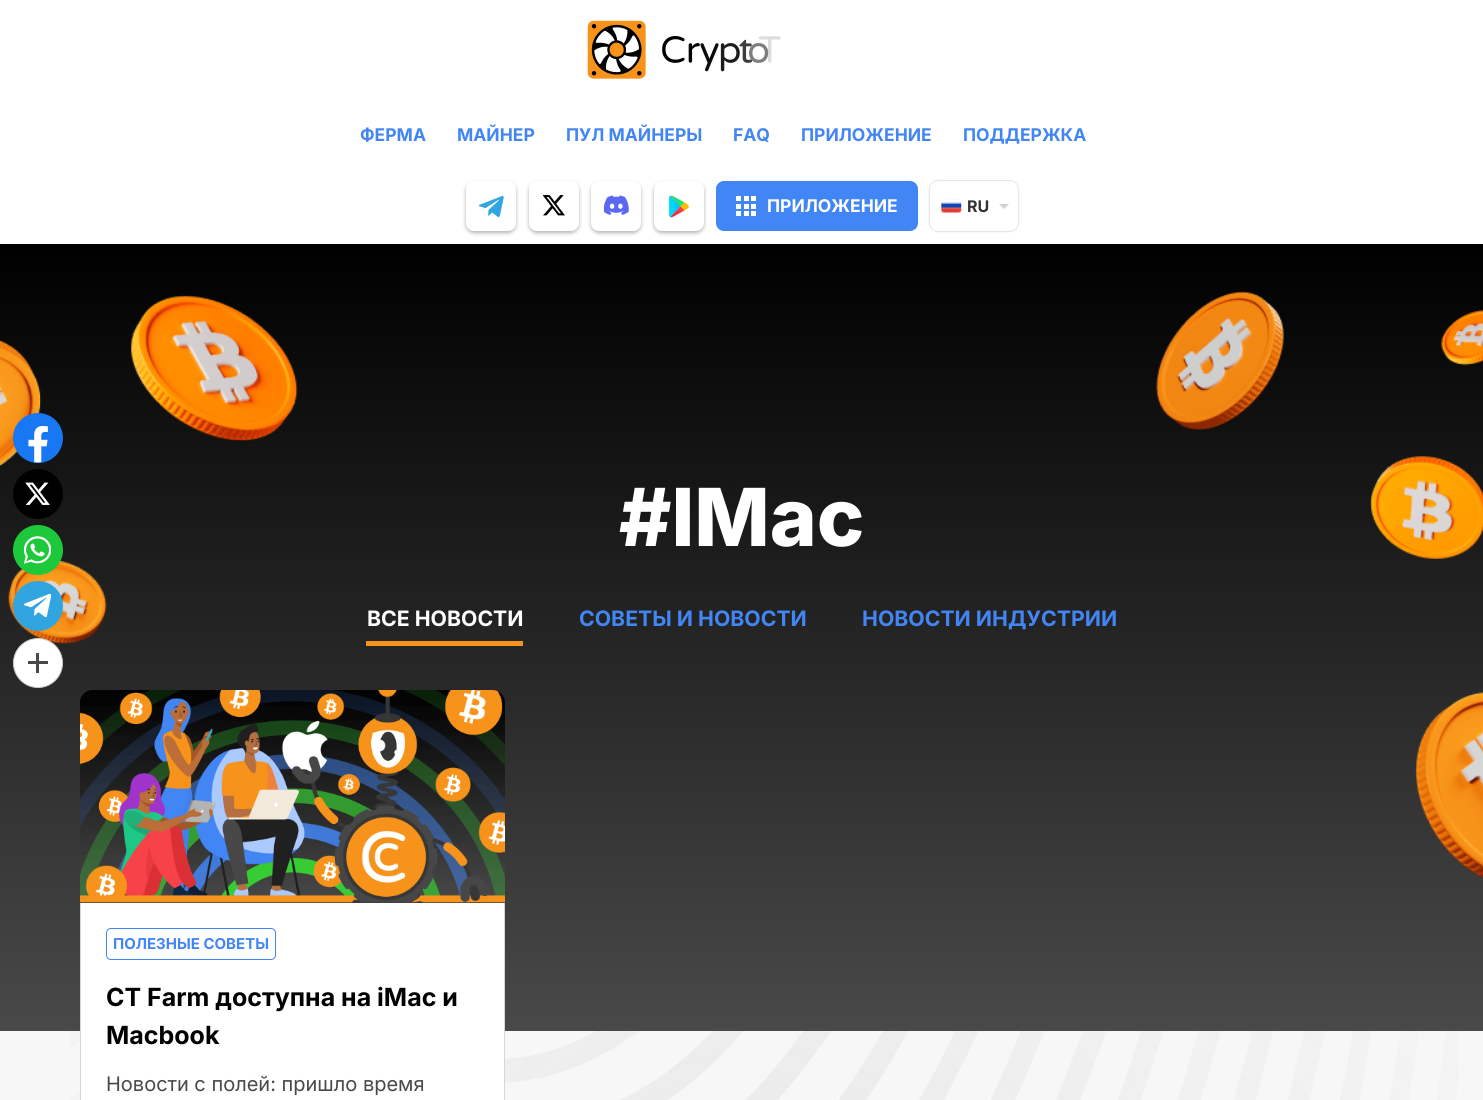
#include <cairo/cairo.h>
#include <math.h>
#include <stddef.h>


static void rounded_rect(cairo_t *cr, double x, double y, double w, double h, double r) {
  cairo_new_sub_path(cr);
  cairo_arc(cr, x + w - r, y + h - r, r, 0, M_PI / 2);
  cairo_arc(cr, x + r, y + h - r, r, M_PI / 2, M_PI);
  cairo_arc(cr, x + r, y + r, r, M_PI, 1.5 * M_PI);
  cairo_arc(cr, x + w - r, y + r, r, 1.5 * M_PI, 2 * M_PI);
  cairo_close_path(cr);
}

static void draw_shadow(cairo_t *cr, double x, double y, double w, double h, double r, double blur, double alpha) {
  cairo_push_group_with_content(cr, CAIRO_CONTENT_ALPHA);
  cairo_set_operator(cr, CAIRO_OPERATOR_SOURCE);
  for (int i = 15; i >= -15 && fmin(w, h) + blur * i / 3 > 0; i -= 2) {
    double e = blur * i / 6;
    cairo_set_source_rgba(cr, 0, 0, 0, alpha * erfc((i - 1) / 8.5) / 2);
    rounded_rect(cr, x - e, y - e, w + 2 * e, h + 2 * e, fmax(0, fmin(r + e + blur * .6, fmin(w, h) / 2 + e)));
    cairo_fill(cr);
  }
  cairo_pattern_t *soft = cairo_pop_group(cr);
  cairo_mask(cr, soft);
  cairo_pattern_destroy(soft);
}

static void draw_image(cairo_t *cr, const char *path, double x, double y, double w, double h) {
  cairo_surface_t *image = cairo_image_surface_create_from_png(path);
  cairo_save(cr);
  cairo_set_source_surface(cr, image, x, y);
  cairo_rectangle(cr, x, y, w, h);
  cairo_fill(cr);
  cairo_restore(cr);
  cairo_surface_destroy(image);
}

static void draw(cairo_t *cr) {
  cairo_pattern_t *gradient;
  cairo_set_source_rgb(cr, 247 / 255.0, 247 / 255.0, 247 / 255.0);
  cairo_paint(cr);
  gradient = cairo_pattern_create_linear(742, 244, 742, 1031);
  cairo_pattern_add_color_stop_rgba(gradient, 0, 0, 0, 0, 1);
  cairo_pattern_add_color_stop_rgba(gradient, 1, 73 / 255.0, 73 / 255.0, 73 / 255.0, 1);
  cairo_set_source(cr, gradient);
  cairo_pattern_destroy(gradient);
  cairo_rectangle(cr, 0, 244, 1483, 787);
  cairo_fill(cr);
  draw_image(cr, "images/12.png", 0, 291, 1483, 588);
  cairo_set_source_rgb(cr, 24 / 255.0, 119 / 255.0, 242 / 255.0);
  cairo_arc(cr, 38, 438, 25, 0, 2 * M_PI);
  cairo_fill(cr);
  draw_image(cr, "images/1.png", 28, 425, 20, 38);
  cairo_set_source_rgb(cr, 0, 0, 0);
  cairo_arc(cr, 38, 494, 25, 0, 2 * M_PI);
  cairo_fill(cr);
  draw_image(cr, "images/2.png", 25, 482, 25, 23);
  cairo_set_source_rgb(cr, 29 / 255.0, 201 / 255.0, 59 / 255.0);
  cairo_arc(cr, 38, 550, 25, 0, 2 * M_PI);
  cairo_fill(cr);
  draw_image(cr, "images/3.png", 24, 536, 27, 28);
  cairo_set_source_rgb(cr, 49 / 255.0, 165 / 255.0, 224 / 255.0);
  cairo_arc(cr, 38, 606, 25, 0, 2 * M_PI);
  cairo_fill(cr);
  draw_image(cr, "images/4.png", 24, 594, 27, 24);
  cairo_set_source_rgb(cr, 1, 1, 1);
  cairo_arc(cr, 38, 663, 24.5, 0, 2 * M_PI);
  cairo_fill_preserve(cr);
  cairo_set_source_rgb(cr, 205 / 255.0, 205 / 255.0, 205 / 255.0);
  cairo_set_line_width(cr, 1);
  cairo_stroke(cr);
  cairo_set_source_rgb(cr, 73 / 255.0, 73 / 255.0, 73 / 255.0);
  cairo_rectangle(cr, 36, 653, 3, 20);
  cairo_fill(cr);
  cairo_rectangle(cr, 28, 661, 20, 3);
  cairo_fill(cr);
  cairo_set_source_rgb(cr, 0, 0, 0);
  draw_shadow(cr, 0, 1, 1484, 244, 0, 2, 0.2);
  cairo_set_source_rgb(cr, 1, 1, 1);
  cairo_rectangle(cr, 0, 0, 1483, 244);
  cairo_fill(cr);
  draw_image(cr, "images/5.png", 587, 20, 194, 59);
  cairo_set_source_rgb(cr, 0, 0, 0);
  draw_shadow(cr, 466, 183, 50, 50, 8, 2, 0.3);
  cairo_set_source_rgb(cr, 1, 1, 1);
  rounded_rect(cr, 466, 181, 50, 50, 8);
  cairo_fill(cr);
  draw_image(cr, "images/6.png", 479, 195, 25, 23);
  cairo_set_source_rgb(cr, 0, 0, 0);
  draw_shadow(cr, 529, 183, 50, 50, 8, 2, 0.3);
  cairo_set_source_rgb(cr, 1, 1, 1);
  rounded_rect(cr, 529, 181, 50, 50, 8);
  cairo_fill(cr);
  draw_image(cr, "images/7.png", 543, 195, 22, 21);
  cairo_set_source_rgb(cr, 0, 0, 0);
  draw_shadow(cr, 591, 183, 50, 50, 8, 2, 0.3);
  cairo_set_source_rgb(cr, 1, 1, 1);
  rounded_rect(cr, 591, 181, 50, 50, 8);
  cairo_fill(cr);
  draw_image(cr, "images/8.png", 604, 195, 25, 20);
  cairo_set_source_rgb(cr, 0, 0, 0);
  draw_shadow(cr, 654, 183, 50, 50, 8, 2, 0.3);
  cairo_set_source_rgb(cr, 1, 1, 1);
  rounded_rect(cr, 654, 181, 50, 50, 8);
  cairo_fill(cr);
  draw_image(cr, "images/9.png", 669, 195, 20, 23);
  cairo_set_source_rgb(cr, 66 / 255.0, 133 / 255.0, 244 / 255.0);
  rounded_rect(cr, 716, 181, 202, 50, 8);
  cairo_fill(cr);
  draw_image(cr, "images/10.png", 736, 196, 20, 20);
  cairo_set_source_rgb(cr, 0, 0, 0);
  draw_shadow(cr, 930, 181, 88, 50, 8, 1, 0.3);
  cairo_set_source_rgb(cr, 1, 1, 1);
  rounded_rect(cr, 930, 181, 88, 50, 8);
  cairo_fill(cr);
  draw_image(cr, "images/11.png", 941, 199, 21, 14);
  cairo_set_source_rgb(cr, 208 / 255.0, 208 / 255.0, 208 / 255.0);
  cairo_new_path(cr);
  cairo_move_to(cr, 999, 204);
  cairo_line_to(cr, 1009, 204);
  cairo_line_to(cr, 1004, 209);
  cairo_close_path(cr);
  cairo_fill(cr);
  cairo_set_source_rgb(cr, 247 / 255.0, 147 / 255.0, 26 / 255.0);
  cairo_rectangle(cr, 366, 641, 157, 5);
  cairo_fill(cr);
  draw_image(cr, "images/13.png", 80, 690, 425, 213);
  draw_image(cr, "images/14.png", 70, 1031, 1389, 69);
  cairo_set_source_rgb(cr, 1, 1, 1);
  cairo_rectangle(cr, 81, 903, 423, 197);
  cairo_fill(cr);
  cairo_set_source_rgb(cr, 214 / 255.0, 214 / 255.0, 214 / 255.0);
  cairo_rectangle(cr, 504, 903, 1, 197);
  cairo_fill(cr);
  cairo_rectangle(cr, 80, 903, 1, 197);
  cairo_fill(cr);
  rounded_rect(cr, 106.5, 928.5, 169, 31, 4.5);
  cairo_set_source_rgb(cr, 66 / 255.0, 133 / 255.0, 244 / 255.0);
  cairo_stroke(cr);
  cairo_select_font_face(cr, "Inter", CAIRO_FONT_SLANT_NORMAL, CAIRO_FONT_WEIGHT_BOLD);
  cairo_set_font_size(cr, 17.5);
  cairo_move_to(cr, 360, 141);
  cairo_show_text(cr, "ФЕРМА");
  cairo_move_to(cr, 457, 141);
  cairo_show_text(cr, "МАЙНЕР");
  cairo_move_to(cr, 566, 141);
  cairo_show_text(cr, "ПУЛ МАЙНЕРЫ");
  cairo_move_to(cr, 733, 141);
  cairo_show_text(cr, "FAQ");
  cairo_move_to(cr, 801, 141);
  cairo_show_text(cr, "ПРИЛОЖЕНИЕ");
  cairo_move_to(cr, 963, 141);
  cairo_show_text(cr, "ПОДДЕРЖКА");
  cairo_set_source_rgb(cr, 1, 1, 1);
  cairo_move_to(cr, 767, 212);
  cairo_show_text(cr, "ПРИЛОЖЕНИЕ");
  cairo_set_font_size(cr, 16);
  cairo_set_source_rgb(cr, 50 / 255.0, 50 / 255.0, 50 / 255.0);
  cairo_move_to(cr, 967, 212);
  cairo_show_text(cr, "RU");
  cairo_select_font_face(cr, "Inter ExtraBold", CAIRO_FONT_SLANT_NORMAL, CAIRO_FONT_WEIGHT_NORMAL);
  cairo_set_font_size(cr, 80);
  cairo_set_source_rgb(cr, 1, 1, 1);
  cairo_move_to(cr, 619, 546);
  cairo_show_text(cr, "#IMac");
  cairo_select_font_face(cr, "Inter", CAIRO_FONT_SLANT_NORMAL, CAIRO_FONT_WEIGHT_BOLD);
  cairo_set_font_size(cr, 21.25);
  cairo_move_to(cr, 367, 626);
  cairo_show_text(cr, "ВСЕ НОВОСТИ");
  cairo_set_source_rgb(cr, 66 / 255.0, 133 / 255.0, 244 / 255.0);
  cairo_move_to(cr, 579, 626);
  cairo_show_text(cr, "СОВЕТЫ И НОВОСТИ");
  cairo_move_to(cr, 862, 626);
  cairo_show_text(cr, "НОВОСТИ ИНДУСТРИИ");
  cairo_set_font_size(cr, 15);
  cairo_move_to(cr, 113, 949);
  cairo_show_text(cr, "ПОЛЕЗНЫЕ СОВЕТЫ");
  cairo_set_font_size(cr, 25);
  cairo_set_source_rgb(cr, 0, 0, 0);
  cairo_move_to(cr, 106, 1006);
  cairo_show_text(cr, "CT Farm доступна на iMac и");
  cairo_move_to(cr, 106, 1044);
  cairo_show_text(cr, "Macbook");
  cairo_select_font_face(cr, "Inter", CAIRO_FONT_SLANT_NORMAL, CAIRO_FONT_WEIGHT_NORMAL);
  cairo_set_font_size(cr, 20);
  cairo_set_source_rgb(cr, 73 / 255.0, 73 / 255.0, 73 / 255.0);
  cairo_move_to(cr, 106, 1091);
  cairo_show_text(cr, "Новости с полей: пришло время");
}

int main(void) {
  cairo_surface_t *surface = cairo_image_surface_create(CAIRO_FORMAT_RGB24, 1483, 1100);
  cairo_t *cr = cairo_create(surface);
  cairo_font_options_t *options = cairo_font_options_create();
  cairo_font_options_set_hint_metrics(options, CAIRO_HINT_METRICS_OFF);
  cairo_font_options_set_hint_style(options, CAIRO_HINT_STYLE_NONE);
  cairo_set_font_options(cr, options);
  cairo_set_miter_limit(cr, 4);
  draw(cr);
  cairo_surface_write_to_png(surface, "out.png");
  cairo_font_options_destroy(options);
  cairo_destroy(cr);
  cairo_surface_destroy(surface);
  return 0;
}
